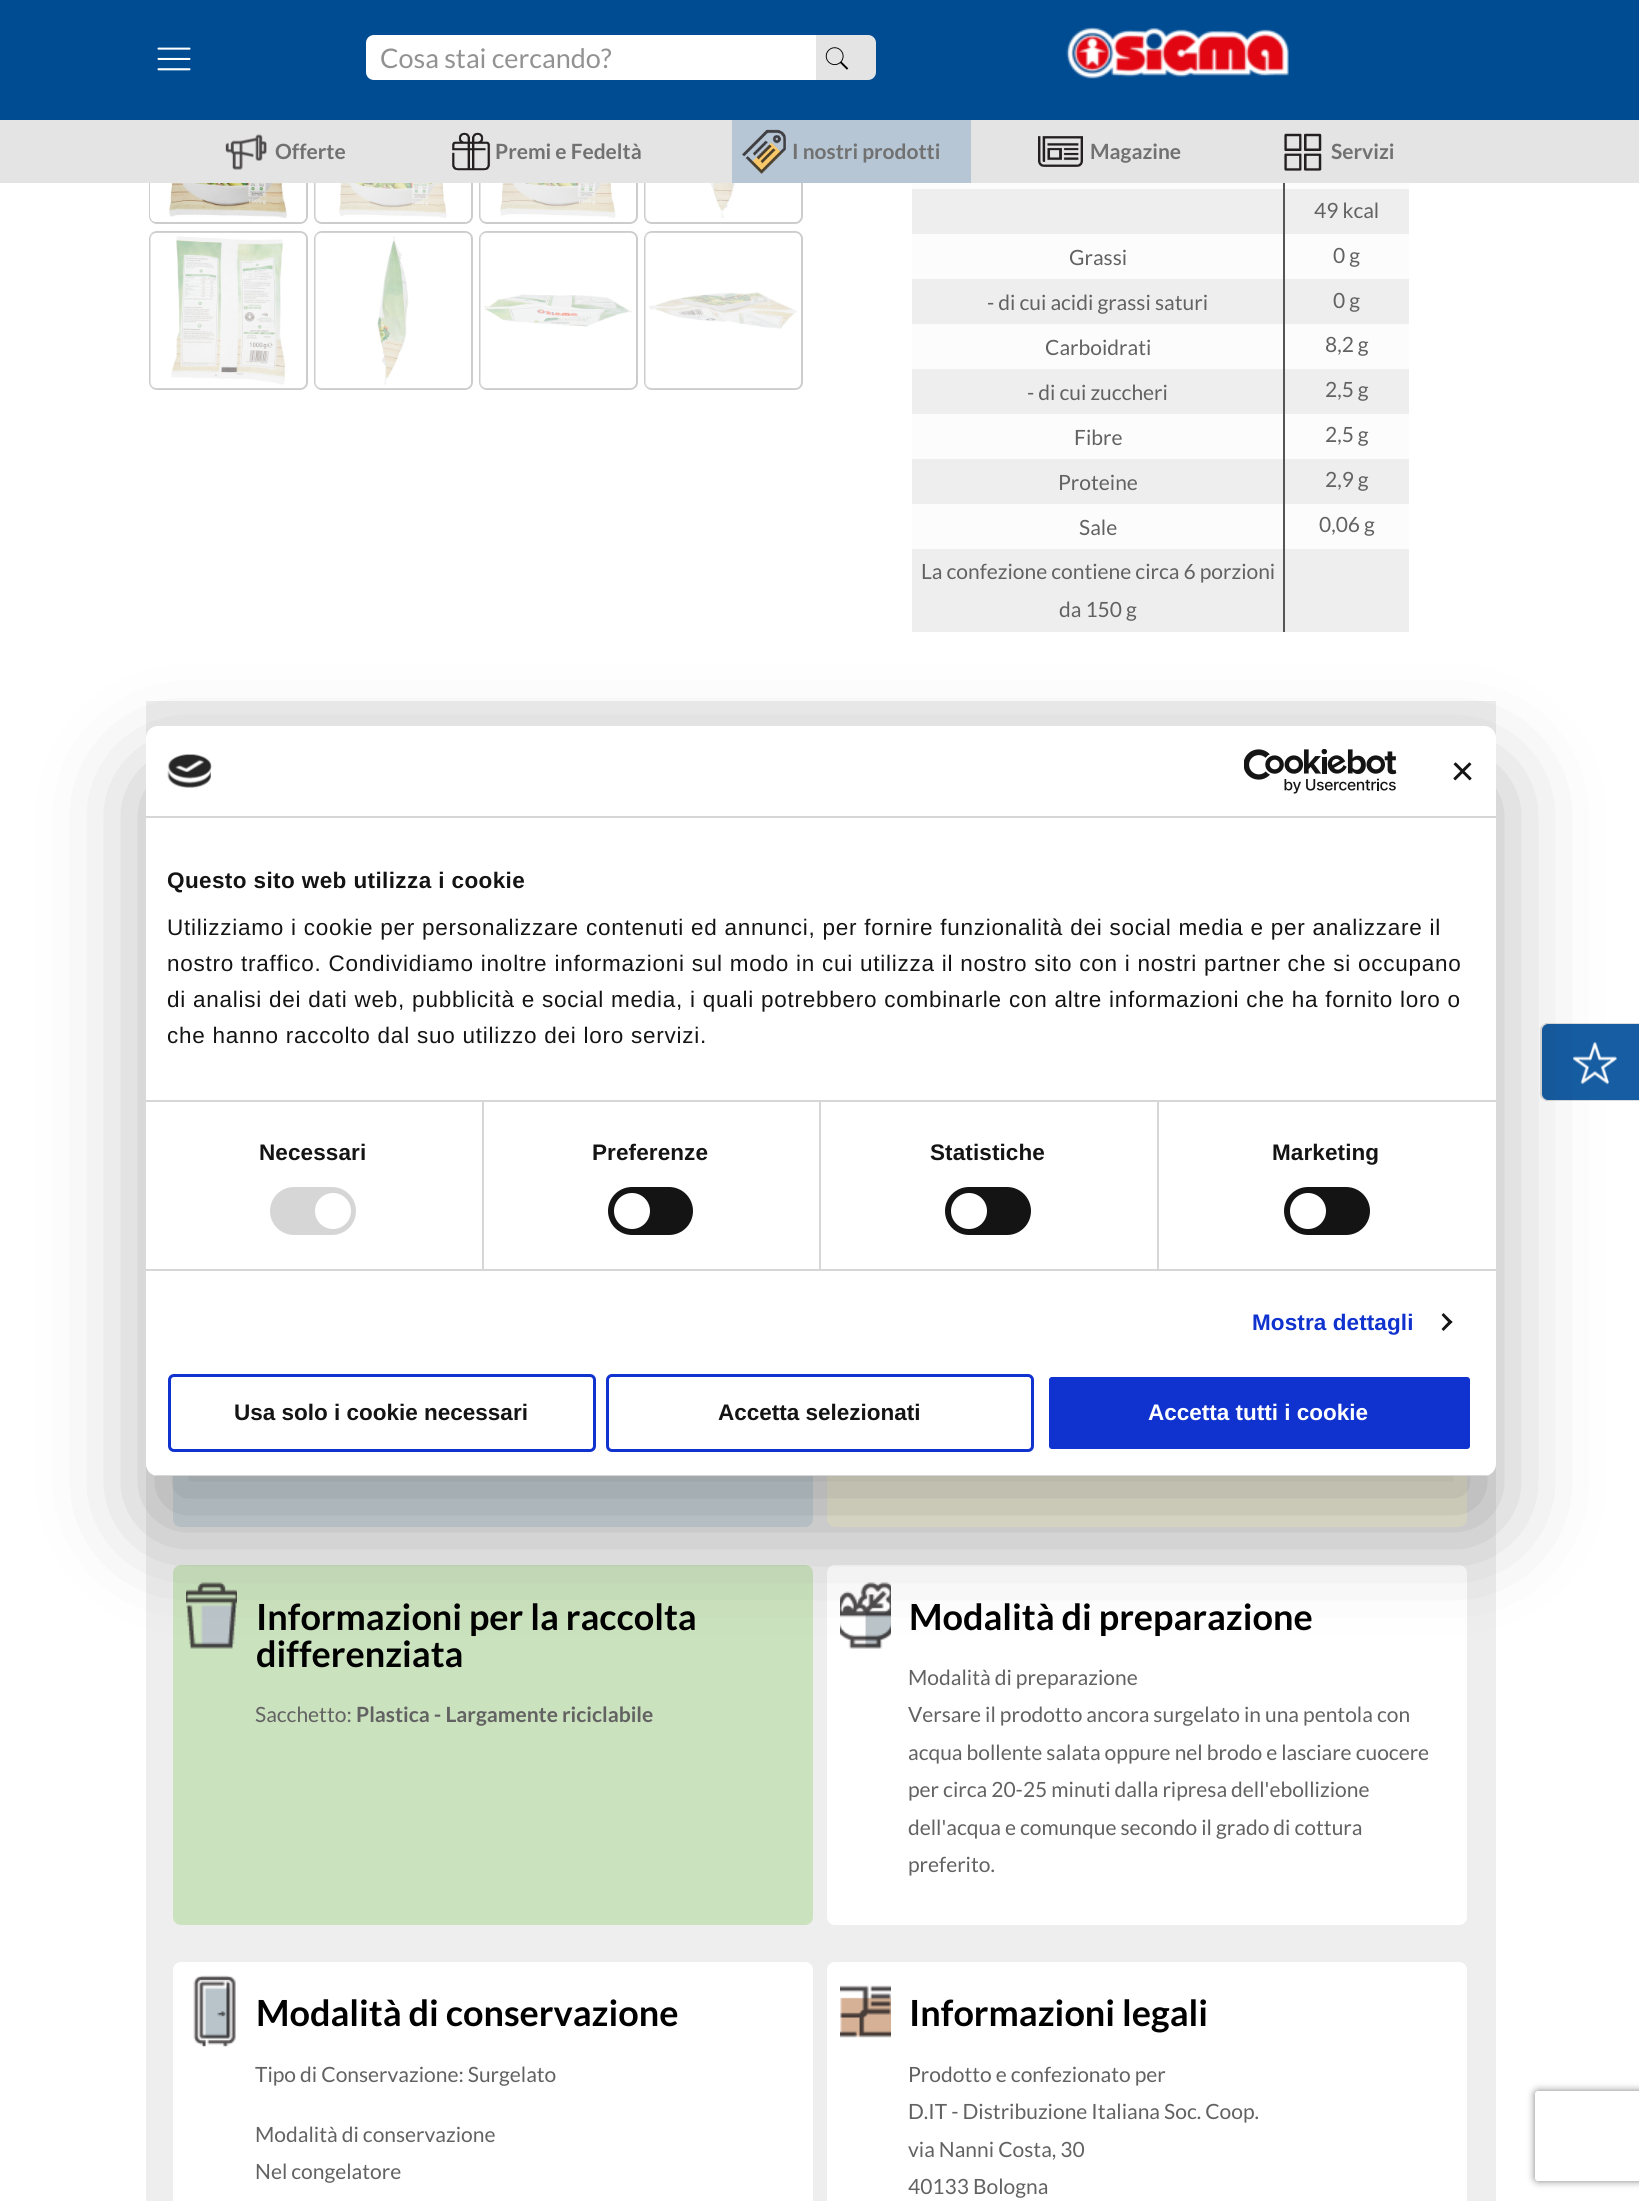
#include <cairo/cairo.h>
#include <math.h>
#include <stddef.h>


static void draw_spaced(cairo_t *cr, double x, double y, const char *s, double letter, double word) {
  cairo_move_to(cr, x, y);
  while (*s) {
    char ch[5] = {0};
    int n = 0;
    do ch[n++] = *s++; while ((*s & 0xC0) == 0x80);
    cairo_show_text(cr, ch);
    cairo_rel_move_to(cr, letter + word * (*ch == ' '), 0);
  }
}

static void rounded_rect(cairo_t *cr, double x, double y, double w, double h, double r) {
  cairo_new_sub_path(cr);
  cairo_arc(cr, x + w - r, y + h - r, r, 0, M_PI / 2);
  cairo_arc(cr, x + r, y + h - r, r, M_PI / 2, M_PI);
  cairo_arc(cr, x + r, y + r, r, M_PI, 1.5 * M_PI);
  cairo_arc(cr, x + w - r, y + r, r, 1.5 * M_PI, 2 * M_PI);
  cairo_close_path(cr);
}

static void draw_shadow(cairo_t *cr, double x, double y, double w, double h, double r, double blur, double alpha) {
  cairo_push_group_with_content(cr, CAIRO_CONTENT_ALPHA);
  cairo_set_operator(cr, CAIRO_OPERATOR_SOURCE);
  for (int i = 15; i >= -15 && fmin(w, h) + blur * i / 3 > 0; i -= 2) {
    double e = blur * i / 6;
    cairo_set_source_rgba(cr, 0, 0, 0, alpha * erfc((i - 1) / 8.5) / 2);
    rounded_rect(cr, x - e, y - e, w + 2 * e, h + 2 * e, fmax(0, fmin(r + e + blur * .6, fmin(w, h) / 2 + e)));
    cairo_fill(cr);
  }
  cairo_pattern_t *soft = cairo_pop_group(cr);
  cairo_mask(cr, soft);
  cairo_pattern_destroy(soft);
}

static void draw_image(cairo_t *cr, const char *path, double x, double y, double w, double h) {
  cairo_surface_t *image = cairo_image_surface_create_from_png(path);
  cairo_save(cr);
  cairo_set_source_surface(cr, image, x, y);
  cairo_rectangle(cr, x, y, w, h);
  cairo_fill(cr);
  cairo_restore(cr);
  cairo_surface_destroy(image);
}

static void draw(cairo_t *cr) {
  cairo_set_source_rgb(cr, 1, 1, 1);
  cairo_paint(cr);
  rounded_rect(cr, 150, 66, 157, 157, 7);
  cairo_set_source_rgb(cr, 204 / 255.0, 204 / 255.0, 204 / 255.0);
  cairo_stroke(cr);
  rounded_rect(cr, 315, 66, 157, 157, 7);
  cairo_stroke(cr);
  rounded_rect(cr, 480, 66, 157, 157, 7);
  cairo_stroke(cr);
  rounded_rect(cr, 645, 66, 157, 157, 7);
  cairo_stroke(cr);
  cairo_set_source_rgb(cr, 0, 76 / 255.0, 147 / 255.0);
  cairo_rectangle(cr, 0, 0, 1639, 120);
  cairo_fill(cr);
  draw_image(cr, "images/1.png", 157, 47, 34, 24);
  cairo_set_source_rgb(cr, 1, 1, 1);
  cairo_new_path(cr);
  cairo_move_to(cr, 374, 35);
  cairo_line_to(cr, 816, 35);
  cairo_line_to(cr, 816, 80);
  cairo_line_to(cr, 374, 80);
  cairo_curve_to(cr, 369.5, 80, 366, 76.5, 366, 72);
  cairo_line_to(cr, 366, 43);
  cairo_curve_to(cr, 366, 38.5, 369.5, 35, 374, 35);
  cairo_close_path(cr);
  cairo_fill(cr);
  cairo_set_source_rgb(cr, 228 / 255.0, 228 / 255.0, 228 / 255.0);
  cairo_new_path(cr);
  cairo_move_to(cr, 816, 35);
  cairo_line_to(cr, 868, 35);
  cairo_curve_to(cr, 872.5, 35, 876, 38.5, 876, 43);
  cairo_line_to(cr, 876, 72);
  cairo_curve_to(cr, 876, 76.5, 872.5, 80, 868, 80);
  cairo_line_to(cr, 816, 80);
  cairo_close_path(cr);
  cairo_fill(cr);
  draw_image(cr, "images/2.png", 825, 47, 24, 23);
  draw_image(cr, "images/3.png", 1066, 27, 223, 52);
  cairo_rectangle(cr, 0, 120, 1639, 63);
  cairo_fill(cr);
  draw_image(cr, "images/4.png", 225, 134, 42, 36);
  draw_image(cr, "images/5.png", 452, 132, 39, 39);
  cairo_set_source_rgb(cr, 182 / 255.0, 198 / 255.0, 212 / 255.0);
  cairo_rectangle(cr, 732, 120, 239, 63);
  cairo_fill(cr);
  draw_image(cr, "images/6.png", 742, 129, 44, 45);
  draw_image(cr, "images/7.png", 1038, 136, 45, 31);
  draw_image(cr, "images/8.png", 1284, 133, 38, 38);
  draw_image(cr, "images/9.png", 150, 183, 156, 39);
  draw_image(cr, "images/10.png", 315, 183, 156, 39);
  draw_image(cr, "images/11.png", 480, 183, 156, 39);
  draw_image(cr, "images/12.png", 645, 183, 156, 39);
  rounded_rect(cr, 150, 232, 157, 157, 7);
  cairo_set_source_rgb(cr, 204 / 255.0, 204 / 255.0, 204 / 255.0);
  cairo_stroke(cr);
  draw_image(cr, "images/13.png", 150, 232, 156, 157);
  rounded_rect(cr, 315, 232, 157, 157, 7);
  cairo_stroke(cr);
  draw_image(cr, "images/14.png", 315, 232, 156, 157);
  rounded_rect(cr, 480, 232, 157, 157, 7);
  cairo_stroke(cr);
  draw_image(cr, "images/15.png", 480, 232, 156, 157);
  rounded_rect(cr, 645, 232, 157, 157, 7);
  cairo_stroke(cr);
  draw_image(cr, "images/16.png", 645, 232, 156, 157);
  cairo_set_source_rgb(cr, 238 / 255.0, 238 / 255.0, 238 / 255.0);
  cairo_rectangle(cr, 912, 189, 497, 443);
  cairo_fill(cr);
  cairo_set_source_rgb(cr, 252 / 255.0, 252 / 255.0, 252 / 255.0);
  cairo_rectangle(cr, 912, 183, 497, 6);
  cairo_fill(cr);
  cairo_set_source_rgb(cr, 85 / 255.0, 85 / 255.0, 85 / 255.0);
  cairo_rectangle(cr, 1283, 183, 2, 51);
  cairo_fill(cr);
  cairo_set_source_rgb(cr, 252 / 255.0, 252 / 255.0, 252 / 255.0);
  cairo_rectangle(cr, 912, 234, 497, 45);
  cairo_fill(cr);
  cairo_set_source_rgb(cr, 85 / 255.0, 85 / 255.0, 85 / 255.0);
  cairo_rectangle(cr, 1283, 234, 2, 90);
  cairo_fill(cr);
  cairo_set_source_rgb(cr, 252 / 255.0, 252 / 255.0, 252 / 255.0);
  cairo_rectangle(cr, 912, 324, 497, 45);
  cairo_fill(cr);
  cairo_set_source_rgb(cr, 85 / 255.0, 85 / 255.0, 85 / 255.0);
  cairo_rectangle(cr, 1283, 324, 2, 90);
  cairo_fill(cr);
  cairo_set_source_rgb(cr, 252 / 255.0, 252 / 255.0, 252 / 255.0);
  cairo_rectangle(cr, 912, 414, 497, 45);
  cairo_fill(cr);
  cairo_set_source_rgb(cr, 85 / 255.0, 85 / 255.0, 85 / 255.0);
  cairo_rectangle(cr, 1283, 414, 2, 90);
  cairo_fill(cr);
  cairo_set_source_rgb(cr, 252 / 255.0, 252 / 255.0, 252 / 255.0);
  cairo_rectangle(cr, 912, 504, 497, 45);
  cairo_fill(cr);
  cairo_set_source_rgb(cr, 85 / 255.0, 85 / 255.0, 85 / 255.0);
  cairo_rectangle(cr, 1283, 504, 2, 128);
  cairo_fill(cr);
  cairo_set_source_rgb(cr, 238 / 255.0, 238 / 255.0, 238 / 255.0);
  cairo_rectangle(cr, 146, 701, 1350, 1500);
  cairo_fill(cr);
  cairo_set_source_rgb(cr, 213 / 255.0, 224 / 255.0, 229 / 255.0);
  rounded_rect(cr, 173, 818, 640, 709, 8);
  cairo_fill(cr);
  cairo_set_source_rgb(cr, 249 / 255.0, 247 / 255.0, 227 / 255.0);
  rounded_rect(cr, 827, 818, 640, 709, 8);
  cairo_fill(cr);
  cairo_set_source_rgb(cr, 203 / 255.0, 226 / 255.0, 190 / 255.0);
  rounded_rect(cr, 173, 1565, 640, 360, 8);
  cairo_fill(cr);
  draw_image(cr, "images/17.png", 186, 1582, 51, 67);
  cairo_set_source_rgb(cr, 1, 1, 1);
  rounded_rect(cr, 827, 1565, 640, 360, 8);
  cairo_fill(cr);
  draw_image(cr, "images/18.png", 840, 1582, 51, 67);
  rounded_rect(cr, 173, 1962, 640, 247, 8);
  cairo_fill(cr);
  draw_image(cr, "images/19.png", 193, 1975, 43, 72);
  rounded_rect(cr, 827, 1962, 640, 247, 8);
  cairo_fill(cr);
  draw_image(cr, "images/20.png", 840, 1985, 51, 53);
  cairo_set_source_rgb(cr, 22 / 255.0, 93 / 255.0, 163 / 255.0);
  cairo_new_path(cr);
  cairo_move_to(cr, 1549, 1023);
  cairo_line_to(cr, 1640, 1023);
  cairo_line_to(cr, 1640, 1101);
  cairo_line_to(cr, 1549, 1101);
  cairo_curve_to(cr, 1544.5, 1101, 1541, 1097.5, 1541, 1093);
  cairo_line_to(cr, 1541, 1031);
  cairo_curve_to(cr, 1541, 1026.5, 1544.5, 1023, 1549, 1023);
  cairo_close_path(cr);
  cairo_fill(cr);
  cairo_set_source_rgb(cr, 221 / 255.0, 221 / 255.0, 221 / 255.0);
  cairo_set_fill_rule(cr, CAIRO_FILL_RULE_EVEN_ODD);
  cairo_new_path(cr);
  cairo_move_to(cr, 1548, 1023);
  cairo_line_to(cr, 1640, 1023);
  cairo_line_to(cr, 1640, 1101);
  cairo_line_to(cr, 1548, 1101);
  cairo_curve_to(cr, 1544, 1101, 1540, 1098, 1540, 1094);
  cairo_line_to(cr, 1540, 1030);
  cairo_curve_to(cr, 1540, 1026, 1544, 1023, 1548, 1023);
  cairo_close_path(cr);
  cairo_move_to(cr, 1548, 1024);
  cairo_line_to(cr, 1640, 1024);
  cairo_line_to(cr, 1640, 1100);
  cairo_line_to(cr, 1548, 1100);
  cairo_curve_to(cr, 1545, 1100, 1542, 1097, 1542, 1094);
  cairo_line_to(cr, 1542, 1030);
  cairo_curve_to(cr, 1542, 1027, 1545, 1024, 1548, 1024);
  cairo_close_path(cr);
  cairo_fill(cr);
  draw_image(cr, "images/24.png", 1573, 1042, 44, 43);
  cairo_set_source_rgb(cr, 0, 0, 0);
  draw_shadow(cr, 146, 774, 1350, 750, 12, 51, 0.3);
  cairo_set_source_rgb(cr, 1, 1, 1);
  rounded_rect(cr, 146, 726, 1350, 750, 12);
  cairo_fill(cr);
  cairo_set_source_rgb(cr, 214 / 255.0, 214 / 255.0, 214 / 255.0);
  cairo_rectangle(cr, 146, 816, 1350, 2);
  cairo_fill(cr);
  draw_image(cr, "images/21.png", 167, 754, 45, 34);
  draw_image(cr, "images/22.png", 1244, 749, 153, 45);
  draw_image(cr, "images/23.png", 1453, 762, 19, 19);
  cairo_rectangle(cr, 482, 1101, 2, 168);
  cairo_fill(cr);
  cairo_rectangle(cr, 819, 1101, 2, 168);
  cairo_fill(cr);
  cairo_rectangle(cr, 1157, 1101, 2, 168);
  cairo_fill(cr);
  cairo_rectangle(cr, 146, 1100, 1350, 2);
  cairo_fill(cr);
  cairo_rectangle(cr, 146, 1269, 1350, 2);
  cairo_fill(cr);
  rounded_rect(cr, 270, 1187, 86, 48, 24);
  cairo_fill(cr);
  cairo_set_source_rgb(cr, 1, 1, 1);
  cairo_arc(cr, 333, 1211, 18, 0, 2 * M_PI);
  cairo_fill(cr);
  cairo_set_source_rgb(cr, 20 / 255.0, 20 / 255.0, 20 / 255.0);
  rounded_rect(cr, 608, 1187, 85, 48, 24);
  cairo_fill(cr);
  cairo_set_source_rgb(cr, 1, 1, 1);
  cairo_arc(cr, 632, 1211, 18, 0, 2 * M_PI);
  cairo_fill(cr);
  cairo_set_source_rgb(cr, 20 / 255.0, 20 / 255.0, 20 / 255.0);
  rounded_rect(cr, 945, 1187, 86, 48, 24);
  cairo_fill(cr);
  cairo_set_source_rgb(cr, 1, 1, 1);
  cairo_arc(cr, 969, 1211, 18, 0, 2 * M_PI);
  cairo_fill(cr);
  cairo_set_source_rgb(cr, 20 / 255.0, 20 / 255.0, 20 / 255.0);
  rounded_rect(cr, 1284, 1187, 86, 48, 24);
  cairo_fill(cr);
  cairo_set_source_rgb(cr, 1, 1, 1);
  cairo_arc(cr, 1308, 1211, 18, 0, 2 * M_PI);
  cairo_fill(cr);
  cairo_set_source_rgb(cr, 20 / 255.0, 20 / 255.0, 20 / 255.0);
  cairo_set_fill_rule(cr, CAIRO_FILL_RULE_WINDING);
  cairo_new_path(cr);
  cairo_move_to(cr, 1443.5, 1313);
  cairo_line_to(cr, 1452.5, 1322);
  cairo_line_to(cr, 1450, 1324);
  cairo_line_to(cr, 1441.5, 1315);
  cairo_close_path(cr);
  cairo_fill(cr);
  cairo_new_path(cr);
  cairo_move_to(cr, 1450, 1320);
  cairo_line_to(cr, 1452.5, 1322);
  cairo_line_to(cr, 1443.5, 1331);
  cairo_line_to(cr, 1441.5, 1329);
  cairo_close_path(cr);
  cairo_fill(cr);
  cairo_save(cr);
  rounded_rect(cr, 146, 726, 1350, 750, 12);
  cairo_clip(cr);
  cairo_set_source_rgb(cr, 214 / 255.0, 214 / 255.0, 214 / 255.0);
  cairo_rectangle(cr, 146, 1475, 1350, 1);
  cairo_fill(cr);
  cairo_restore(cr);
  rounded_rect(cr, 169.5, 1375.5, 425, 75, 4.5);
  cairo_set_source_rgb(cr, 16 / 255.0, 50 / 255.0, 207 / 255.0);
  cairo_set_line_width(cr, 3);
  cairo_stroke(cr);
  rounded_rect(cr, 607.5, 1375.5, 425, 75, 4.5);
  cairo_stroke(cr);
  rounded_rect(cr, 1047.5, 1375.5, 424, 75, 4.5);
  cairo_fill_preserve(cr);
  cairo_set_source_rgb(cr, 1, 1, 1);
  cairo_stroke(cr);
  cairo_save(cr);
  cairo_set_fill_rule(cr, CAIRO_FILL_RULE_EVEN_ODD);
  cairo_new_path(cr);
  cairo_move_to(cr, 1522, 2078);
  cairo_line_to(cr, 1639, 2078);
  cairo_line_to(cr, 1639, 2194);
  cairo_line_to(cr, 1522, 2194);
  cairo_close_path(cr);
  cairo_move_to(cr, 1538, 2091);
  cairo_line_to(cr, 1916, 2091);
  cairo_curve_to(cr, 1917.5, 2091, 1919, 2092.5, 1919, 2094);
  cairo_line_to(cr, 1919, 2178);
  cairo_curve_to(cr, 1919, 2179.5, 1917.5, 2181, 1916, 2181);
  cairo_line_to(cr, 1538, 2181);
  cairo_curve_to(cr, 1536.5, 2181, 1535, 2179.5, 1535, 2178);
  cairo_line_to(cr, 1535, 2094);
  cairo_curve_to(cr, 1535, 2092.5, 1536.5, 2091, 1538, 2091);
  cairo_close_path(cr);
  cairo_clip(cr);
  cairo_set_source_rgb(cr, 128 / 255.0, 128 / 255.0, 128 / 255.0);
  draw_shadow(cr, 1535, 2091, 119, 90, 3, 4, 1);
  cairo_restore(cr);
  cairo_select_font_face(cr, "Lato", CAIRO_FONT_SLANT_NORMAL, CAIRO_FONT_WEIGHT_NORMAL);
  cairo_set_font_size(cr, 27);
  cairo_set_source_rgb(cr, 146 / 255.0, 146 / 255.0, 146 / 255.0);
  cairo_move_to(cr, 380, 68);
  cairo_show_text(cr, "Cosa stai cercando?");
  cairo_select_font_face(cr, "Lato", CAIRO_FONT_SLANT_NORMAL, CAIRO_FONT_WEIGHT_BOLD);
  cairo_set_font_size(cr, 21);
  cairo_set_source_rgb(cr, 113 / 255.0, 113 / 255.0, 113 / 255.0);
  cairo_move_to(cr, 275, 159);
  cairo_show_text(cr, "Offerte");
  cairo_move_to(cr, 495, 159);
  cairo_show_text(cr, "Premi e Fedeltà");
  cairo_move_to(cr, 792, 159);
  cairo_show_text(cr, "I nostri prodotti");
  cairo_move_to(cr, 1090, 159);
  cairo_show_text(cr, "Magazine");
  cairo_move_to(cr, 1331, 159);
  cairo_show_text(cr, "Servizi");
  cairo_select_font_face(cr, "Lato", CAIRO_FONT_SLANT_NORMAL, CAIRO_FONT_WEIGHT_NORMAL);
  cairo_set_source_rgb(cr, 98 / 255.0, 98 / 255.0, 98 / 255.0);
  cairo_move_to(cr, 1314, 218);
  cairo_show_text(cr, "49 kcal");
  cairo_move_to(cr, 1069, 265);
  cairo_show_text(cr, "Grassi");
  cairo_move_to(cr, 1333, 263);
  cairo_show_text(cr, "0 g");
  cairo_move_to(cr, 987, 310);
  cairo_show_text(cr, "- di cui acidi grassi saturi");
  cairo_move_to(cr, 1333, 308);
  cairo_show_text(cr, "0 g");
  cairo_move_to(cr, 1045, 355);
  cairo_show_text(cr, "Carboidrati");
  cairo_move_to(cr, 1325, 352);
  cairo_show_text(cr, "8,2 g");
  cairo_move_to(cr, 1027, 400);
  cairo_show_text(cr, "- di cui zuccheri");
  cairo_move_to(cr, 1325, 397);
  cairo_show_text(cr, "2,5 g");
  cairo_move_to(cr, 1074, 445);
  cairo_show_text(cr, "Fibre");
  cairo_move_to(cr, 1325, 442);
  cairo_show_text(cr, "2,5 g");
  cairo_move_to(cr, 1058, 490);
  cairo_show_text(cr, "Proteine");
  cairo_move_to(cr, 1325, 487);
  cairo_show_text(cr, "2,9 g");
  cairo_move_to(cr, 1079, 535);
  cairo_show_text(cr, "Sale");
  cairo_move_to(cr, 1319, 532);
  cairo_show_text(cr, "0,06 g");
  cairo_move_to(cr, 921, 579);
  cairo_show_text(cr, "La confezione contiene circa 6 porzioni");
  cairo_move_to(cr, 1059, 617);
  cairo_show_text(cr, "da 150 g");
  cairo_select_font_face(cr, "Lato", CAIRO_FONT_SLANT_NORMAL, CAIRO_FONT_WEIGHT_BOLD);
  cairo_set_font_size(cr, 36);
  cairo_set_source_rgb(cr, 0, 0, 0);
  cairo_move_to(cr, 256, 1630);
  cairo_show_text(cr, "Informazioni per la raccolta");
  cairo_move_to(cr, 256, 1667);
  cairo_show_text(cr, "differenziata");
  cairo_select_font_face(cr, "Lato", CAIRO_FONT_SLANT_NORMAL, CAIRO_FONT_WEIGHT_NORMAL);
  cairo_set_font_size(cr, 21);
  cairo_set_source_rgb(cr, 98 / 255.0, 98 / 255.0, 98 / 255.0);
  cairo_move_to(cr, 255, 1722);
  cairo_show_text(cr, "Sacchetto:");
  cairo_select_font_face(cr, "Lato", CAIRO_FONT_SLANT_NORMAL, CAIRO_FONT_WEIGHT_BOLD);
  cairo_move_to(cr, 356, 1722);
  cairo_show_text(cr, "Plastica - Largamente riciclabile");
  cairo_set_font_size(cr, 36);
  cairo_set_source_rgb(cr, 0, 0, 0);
  cairo_move_to(cr, 909, 1630);
  cairo_show_text(cr, "Modalità di preparazione");
  cairo_select_font_face(cr, "Lato", CAIRO_FONT_SLANT_NORMAL, CAIRO_FONT_WEIGHT_NORMAL);
  cairo_set_font_size(cr, 21);
  cairo_set_source_rgb(cr, 98 / 255.0, 98 / 255.0, 98 / 255.0);
  cairo_move_to(cr, 908, 1685);
  cairo_show_text(cr, "Modalità di preparazione");
  cairo_move_to(cr, 908, 1722);
  cairo_show_text(cr, "Versare il prodotto ancora surgelato in una pentola con");
  cairo_move_to(cr, 908, 1760);
  cairo_show_text(cr, "acqua bollente salata oppure nel brodo e lasciare cuocere");
  cairo_move_to(cr, 908, 1797);
  cairo_show_text(cr, "per circa 20-25 minuti dalla ripresa dell'ebollizione");
  cairo_move_to(cr, 908, 1835);
  cairo_show_text(cr, "dell'acqua e comunque secondo il grado di cottura");
  cairo_move_to(cr, 908, 1872);
  cairo_show_text(cr, "preferito.");
  cairo_select_font_face(cr, "Lato", CAIRO_FONT_SLANT_NORMAL, CAIRO_FONT_WEIGHT_BOLD);
  cairo_set_font_size(cr, 36);
  cairo_set_source_rgb(cr, 0, 0, 0);
  cairo_move_to(cr, 256, 2026);
  cairo_show_text(cr, "Modalità di conservazione");
  cairo_select_font_face(cr, "Lato", CAIRO_FONT_SLANT_NORMAL, CAIRO_FONT_WEIGHT_NORMAL);
  cairo_set_font_size(cr, 21);
  cairo_set_source_rgb(cr, 98 / 255.0, 98 / 255.0, 98 / 255.0);
  cairo_move_to(cr, 255, 2082);
  cairo_show_text(cr, "Tipo di Conservazione: Surgelato");
  cairo_move_to(cr, 255, 2142);
  cairo_show_text(cr, "Modalità di conservazione");
  cairo_move_to(cr, 255, 2179);
  cairo_show_text(cr, "Nel congelatore");
  cairo_select_font_face(cr, "Lato", CAIRO_FONT_SLANT_NORMAL, CAIRO_FONT_WEIGHT_BOLD);
  cairo_set_font_size(cr, 36);
  cairo_set_source_rgb(cr, 0, 0, 0);
  cairo_move_to(cr, 909, 2026);
  cairo_show_text(cr, "Informazioni legali");
  cairo_select_font_face(cr, "Lato", CAIRO_FONT_SLANT_NORMAL, CAIRO_FONT_WEIGHT_NORMAL);
  cairo_set_font_size(cr, 21);
  cairo_set_source_rgb(cr, 98 / 255.0, 98 / 255.0, 98 / 255.0);
  cairo_move_to(cr, 908, 2082);
  cairo_show_text(cr, "Prodotto e confezionato per");
  cairo_move_to(cr, 908, 2119);
  cairo_show_text(cr, "D.IT - Distribuzione Italiana Soc. Coop.");
  cairo_move_to(cr, 908, 2157);
  cairo_show_text(cr, "via Nanni Costa, 30");
  cairo_move_to(cr, 908, 2194);
  cairo_show_text(cr, "40133 Bologna");
  cairo_select_font_face(cr, "Liberation Sans", CAIRO_FONT_SLANT_NORMAL, CAIRO_FONT_WEIGHT_BOLD);
  cairo_set_font_size(cr, 22.5);
  cairo_set_source_rgb(cr, 20 / 255.0, 20 / 255.0, 20 / 255.0);
  draw_spaced(cr, 167, 888, "Questo sito web utilizza i cookie", 0.4, 0);
  cairo_select_font_face(cr, "Liberation Sans", CAIRO_FONT_SLANT_NORMAL, CAIRO_FONT_WEIGHT_NORMAL);
  draw_spaced(cr, 167, 935, "Utilizziamo i cookie per personalizzare contenuti ed annunci, per fornire funzionalità dei social media e per analizzare il", 0.75, 0);
  draw_spaced(cr, 167, 971, "nostro traffico. Condividiamo inoltre informazioni sul modo in cui utilizza il nostro sito con i nostri partner che si occupano", 0.75, 0);
  draw_spaced(cr, 167, 1007, "di analisi dei dati web, pubblicità e social media, i quali potrebbero combinarle con altre informazioni che ha fornito loro o", 0.75, 0);
  draw_spaced(cr, 167, 1043, "che hanno raccolto dal suo utilizzo dei loro servizi.", 0.75, 0);
  cairo_select_font_face(cr, "Liberation Sans", CAIRO_FONT_SLANT_NORMAL, CAIRO_FONT_WEIGHT_BOLD);
  draw_spaced(cr, 259, 1160, "Necessari", 0.1, 0);
  draw_spaced(cr, 592, 1160, "Preferenze", 0.1, 0);
  draw_spaced(cr, 930, 1160, "Statistiche", 0.1, 0);
  draw_spaced(cr, 1272, 1160, "Marketing", 0.1, 0);
  cairo_set_source_rgb(cr, 16 / 255.0, 50 / 255.0, 207 / 255.0);
  draw_spaced(cr, 1252, 1330, "Mostra dettagli", 0.1, 0);
  cairo_set_source_rgb(cr, 20 / 255.0, 20 / 255.0, 20 / 255.0);
  cairo_move_to(cr, 234, 1420);
  cairo_show_text(cr, "Usa solo i cookie necessari");
  cairo_move_to(cr, 718, 1420);
  cairo_show_text(cr, "Accetta selezionati");
  cairo_set_source_rgb(cr, 1, 1, 1);
  cairo_move_to(cr, 1148, 1420);
  cairo_show_text(cr, "Accetta tutti i cookie");
}

int main(void) {
  cairo_surface_t *surface = cairo_image_surface_create(CAIRO_FORMAT_RGB24, 1639, 2201);
  cairo_t *cr = cairo_create(surface);
  cairo_font_options_t *options = cairo_font_options_create();
  cairo_font_options_set_hint_metrics(options, CAIRO_HINT_METRICS_OFF);
  cairo_font_options_set_hint_style(options, CAIRO_HINT_STYLE_NONE);
  cairo_set_font_options(cr, options);
  cairo_set_miter_limit(cr, 4);
  draw(cr);
  cairo_surface_write_to_png(surface, "out.png");
  cairo_font_options_destroy(options);
  cairo_destroy(cr);
  cairo_surface_destroy(surface);
  return 0;
}
